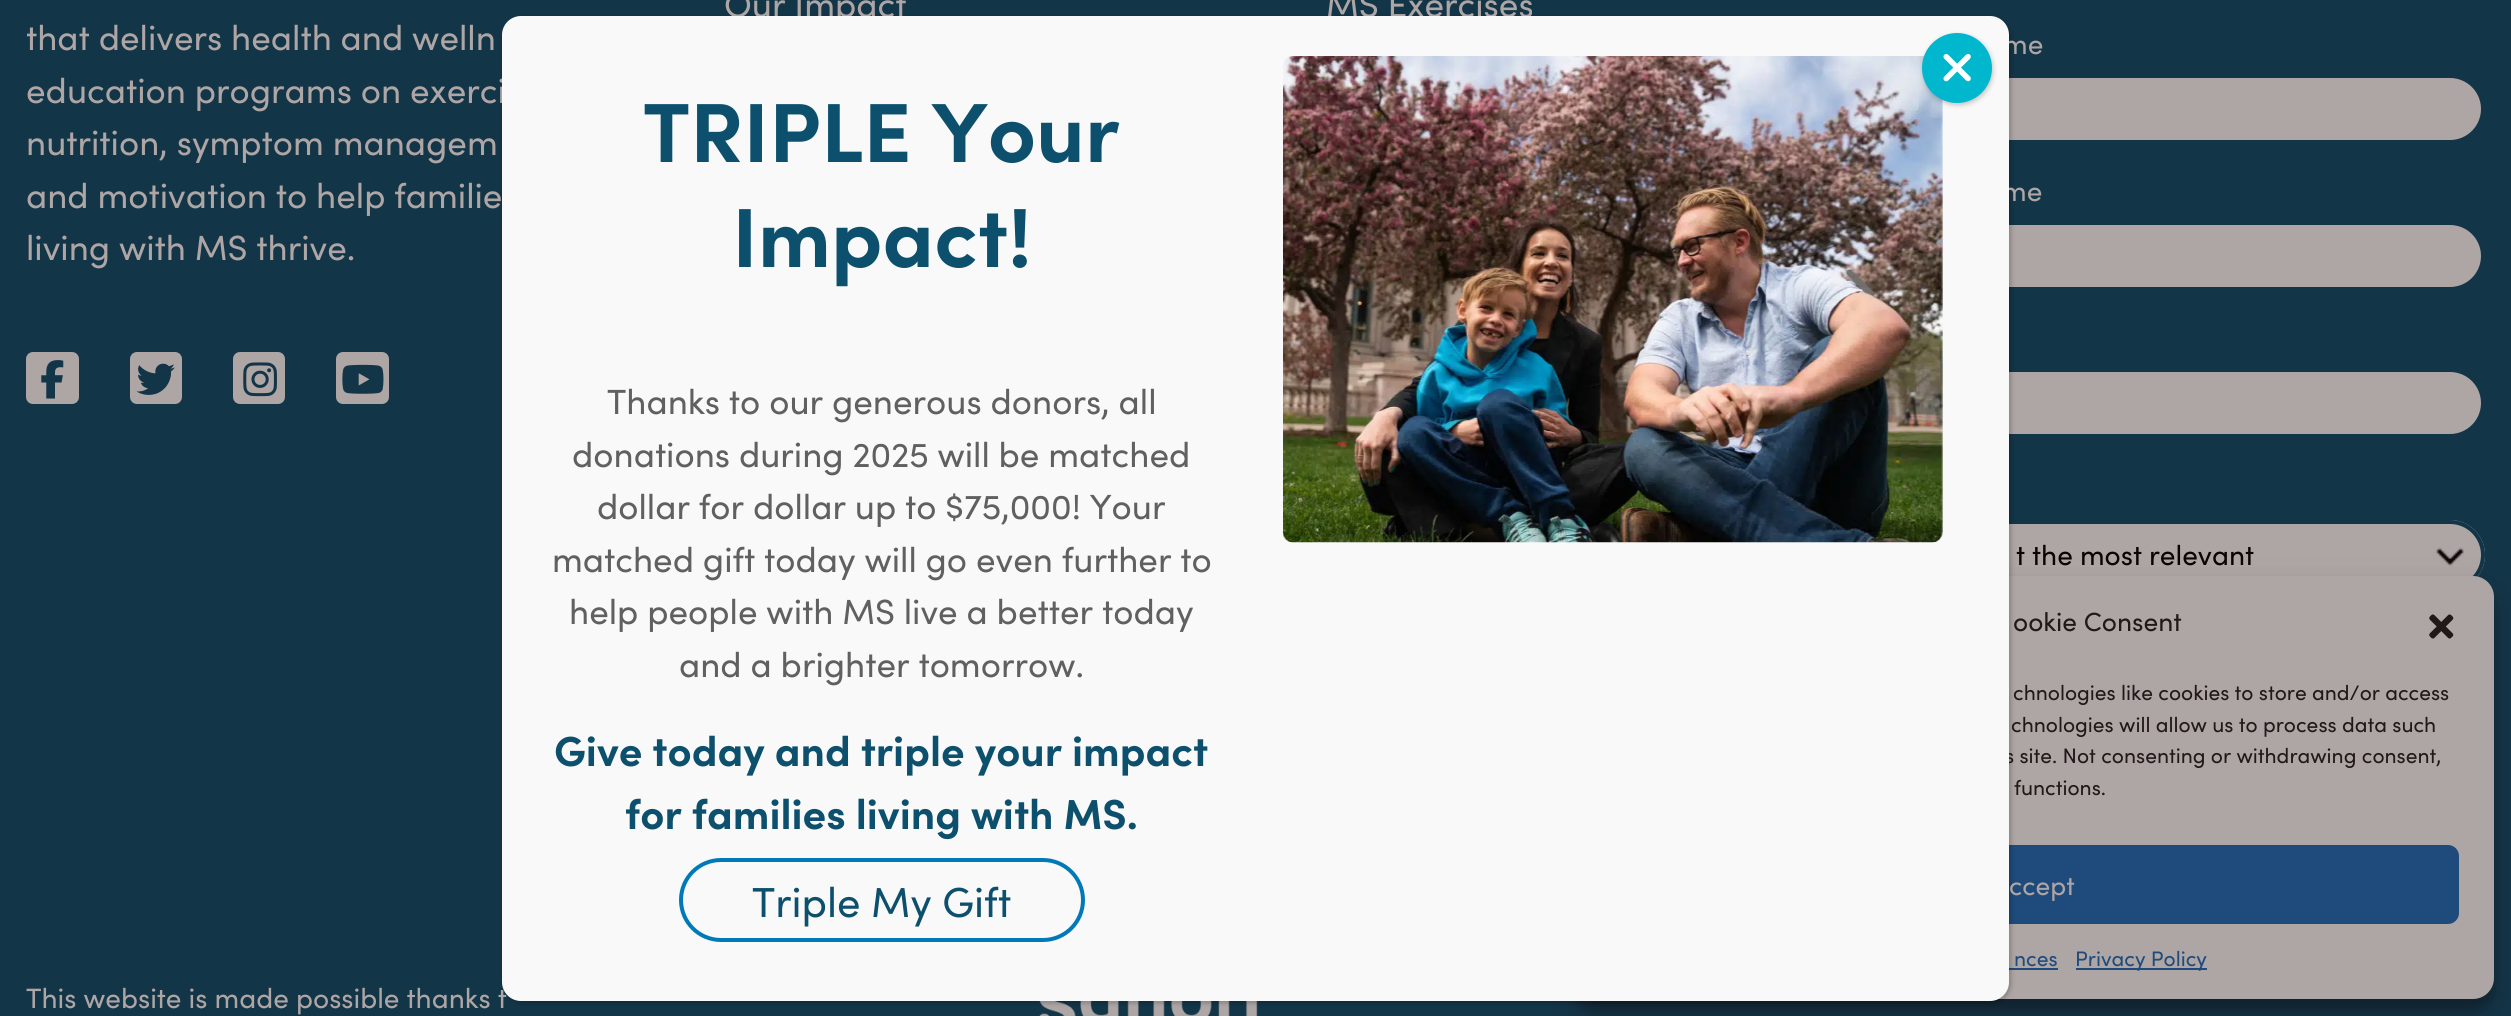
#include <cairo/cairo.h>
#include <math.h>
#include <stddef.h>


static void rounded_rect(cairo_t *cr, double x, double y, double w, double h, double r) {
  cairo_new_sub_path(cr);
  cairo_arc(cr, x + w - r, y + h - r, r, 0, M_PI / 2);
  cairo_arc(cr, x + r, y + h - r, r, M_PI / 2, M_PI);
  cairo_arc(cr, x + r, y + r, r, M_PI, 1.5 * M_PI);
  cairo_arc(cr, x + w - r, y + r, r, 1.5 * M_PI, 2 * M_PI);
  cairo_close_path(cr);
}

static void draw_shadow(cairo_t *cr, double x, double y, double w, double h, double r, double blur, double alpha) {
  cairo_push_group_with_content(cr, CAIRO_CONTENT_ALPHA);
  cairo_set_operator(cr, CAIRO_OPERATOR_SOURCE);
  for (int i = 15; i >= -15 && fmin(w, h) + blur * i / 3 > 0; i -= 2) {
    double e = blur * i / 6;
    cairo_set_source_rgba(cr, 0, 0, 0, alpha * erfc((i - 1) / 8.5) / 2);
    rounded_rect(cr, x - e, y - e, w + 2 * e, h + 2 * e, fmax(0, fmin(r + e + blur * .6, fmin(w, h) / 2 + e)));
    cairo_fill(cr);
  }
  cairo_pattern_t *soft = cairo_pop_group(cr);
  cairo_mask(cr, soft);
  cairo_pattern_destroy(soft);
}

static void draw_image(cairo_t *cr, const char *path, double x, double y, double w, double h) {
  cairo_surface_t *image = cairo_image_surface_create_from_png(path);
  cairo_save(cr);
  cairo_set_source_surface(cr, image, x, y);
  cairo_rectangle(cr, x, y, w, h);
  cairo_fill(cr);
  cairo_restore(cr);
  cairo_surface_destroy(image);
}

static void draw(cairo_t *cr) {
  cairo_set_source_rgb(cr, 19 / 255.0, 53 / 255.0, 72 / 255.0);
  cairo_paint(cr);
  cairo_set_source_rgb(cr, 174 / 255.0, 165 / 255.0, 165 / 255.0);
  rounded_rect(cr, 26, 352, 53, 52, 7);
  cairo_fill(cr);
  draw_image(cr, "images/1.png", 41, 360, 23, 39);
  rounded_rect(cr, 130, 352, 52, 52, 7);
  cairo_fill(cr);
  draw_image(cr, "images/2.png", 136, 363, 39, 32);
  rounded_rect(cr, 233, 352, 52, 52, 7);
  cairo_fill(cr);
  draw_image(cr, "images/3.png", 243, 362, 34, 35);
  rounded_rect(cr, 336, 352, 53, 52, 7);
  cairo_fill(cr);
  draw_image(cr, "images/4.png", 342, 364, 42, 30);
  rounded_rect(cr, 1911, 76, 572, 66, 33);
  cairo_fill_preserve(cr);
  cairo_set_source_rgb(cr, 19 / 255.0, 53 / 255.0, 72 / 255.0);
  cairo_set_line_width(cr, 4);
  cairo_stroke(cr);
  cairo_set_source_rgb(cr, 174 / 255.0, 165 / 255.0, 165 / 255.0);
  rounded_rect(cr, 1911, 223, 572, 66, 33);
  cairo_fill_preserve(cr);
  cairo_set_source_rgb(cr, 19 / 255.0, 53 / 255.0, 72 / 255.0);
  cairo_stroke(cr);
  cairo_set_source_rgb(cr, 174 / 255.0, 165 / 255.0, 165 / 255.0);
  rounded_rect(cr, 1911, 370, 572, 66, 33);
  cairo_fill_preserve(cr);
  cairo_set_source_rgb(cr, 19 / 255.0, 53 / 255.0, 72 / 255.0);
  cairo_stroke(cr);
  cairo_set_source_rgb(cr, 174 / 255.0, 165 / 255.0, 165 / 255.0);
  rounded_rect(cr, 1909, 520, 576, 70, 35);
  cairo_fill(cr);
  draw_image(cr, "images/5.png", 2436, 547, 28, 19);
  rounded_rect(cr, 1911, 522, 572, 66, 33);
  cairo_set_source_rgb(cr, 19 / 255.0, 53 / 255.0, 72 / 255.0);
  cairo_stroke(cr);
  draw_image(cr, "images/6.png", 1039, 1001, 219, 15);
  cairo_set_source_rgb(cr, 11 / 255.0, 2 / 255.0, 2 / 255.0);
  draw_shadow(cr, 1573, 586, 921, 424, 21, 5, 0.23);
  draw_shadow(cr, 1573, 593, 921, 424, 21, 17.5, 0.19);
  cairo_set_source_rgb(cr, 174 / 255.0, 165 / 255.0, 165 / 255.0);
  rounded_rect(cr, 1573, 576, 921, 423, 21);
  cairo_fill(cr);
  cairo_set_source_rgb(cr, 30 / 255.0, 75 / 255.0, 123 / 255.0);
  rounded_rect(cr, 1609, 846, 849, 77, 10);
  cairo_fill_preserve(cr);
  cairo_set_line_width(cr, 2);
  cairo_stroke(cr);
  cairo_rectangle(cr, 2009, 968, 49, 2);
  cairo_fill(cr);
  cairo_set_source_rgb(cr, 2 / 255.0, 2 / 255.0, 2 / 255.0);
  draw_shadow(cr, 504, 18, 1507, 985, 19, 2.5, 0.23);
  draw_image(cr, "images/9.png", 2429, 614, 25, 25);
  cairo_set_source_rgb(cr, 30 / 255.0, 75 / 255.0, 123 / 255.0);
  cairo_rectangle(cr, 2076, 968, 131, 2);
  cairo_fill(cr);
  cairo_select_font_face(cr, "Sofia", CAIRO_FONT_SLANT_NORMAL, CAIRO_FONT_WEIGHT_NORMAL);
  cairo_set_font_size(cr, 35);
  cairo_set_source_rgb(cr, 174 / 255.0, 165 / 255.0, 165 / 255.0);
  cairo_move_to(cr, 724, 17);
  cairo_show_text(cr, "Our Impact");
  cairo_move_to(cr, 1326, 17);
  cairo_show_text(cr, "MS Exercises");
  cairo_move_to(cr, 26, 50);
  cairo_show_text(cr, "that delivers health and welln");
  cairo_move_to(cr, 26, 103);
  cairo_show_text(cr, "education programs on exerci");
  cairo_move_to(cr, 26, 155);
  cairo_show_text(cr, "nutrition, symptom managem");
  cairo_move_to(cr, 26, 208);
  cairo_show_text(cr, "and motivation to help familie");
  cairo_move_to(cr, 26, 260);
  cairo_show_text(cr, "living with MS thrive.");
  cairo_set_font_size(cr, 28);
  cairo_move_to(cr, 2003, 54);
  cairo_show_text(cr, "me");
  cairo_move_to(cr, 2002, 201);
  cairo_show_text(cr, "me");
  cairo_set_source_rgb(cr, 11 / 255.0, 2 / 255.0, 2 / 255.0);
  cairo_move_to(cr, 2016, 565);
  cairo_show_text(cr, "t the most relevant");
  cairo_set_source_rgb(cr, 174 / 255.0, 165 / 255.0, 165 / 255.0);
  cairo_move_to(cr, 26, 1008);
  cairo_show_text(cr, "This website is made possible thanks t");
  cairo_set_font_size(cr, 26.25);
  cairo_set_source_rgb(cr, 33 / 255.0, 24 / 255.0, 24 / 255.0);
  cairo_move_to(cr, 2013, 631);
  cairo_show_text(cr, "ookie Consent");
  cairo_set_font_size(cr, 21);
  cairo_move_to(cr, 2013, 700);
  cairo_show_text(cr, "chnologies like cookies to store and/or access");
  cairo_move_to(cr, 2011, 732);
  cairo_show_text(cr, "chnologies will allow us to process data such");
  cairo_move_to(cr, 2005, 763);
  cairo_show_text(cr, "s site. Not consenting or withdrawing consent,");
  cairo_set_source_rgb(cr, 249 / 255.0, 249 / 255.0, 249 / 255.0);
  rounded_rect(cr, 502, 16, 1507, 985, 19);
  cairo_fill(cr);
  draw_image(cr, "images/8.png", 1283, 56, 660, 487);
  cairo_set_source_rgb(cr, 2 / 255.0, 2 / 255.0, 2 / 255.0);
  draw_shadow(cr, 1923, 35, 70, 70, 35, 2.5, 0.23);
  cairo_set_source_rgb(cr, 0, 183 / 255.0, 205 / 255.0);
  cairo_arc(cr, 1957, 68, 35, 0, 2 * M_PI);
  cairo_fill(cr);
  draw_image(cr, "images/7.png", 1943, 53, 28, 29);
  rounded_rect(cr, 681, 860, 402, 80, 40);
  cairo_set_source_rgb(cr, 0, 121 / 255.0, 184 / 255.0);
  cairo_set_line_width(cr, 4);
  cairo_stroke(cr);
  cairo_set_font_size(cr, 42);
  cairo_set_source_rgb(cr, 13 / 255.0, 80 / 255.0, 109 / 255.0);
  cairo_move_to(cr, 752, 917);
  cairo_show_text(cr, "Triple My Gift");
  cairo_select_font_face(cr, "Sofia", CAIRO_FONT_SLANT_NORMAL, CAIRO_FONT_WEIGHT_BOLD);
  cairo_move_to(cr, 625, 829);
  cairo_show_text(cr, "for families living with MS.");
  cairo_move_to(cr, 554, 766);
  cairo_show_text(cr, "Give today and triple your impact");
  cairo_select_font_face(cr, "Sofia", CAIRO_FONT_SLANT_NORMAL, CAIRO_FONT_WEIGHT_NORMAL);
  cairo_set_font_size(cr, 35);
  cairo_set_source_rgb(cr, 96 / 255.0, 96 / 255.0, 96 / 255.0);
  cairo_move_to(cr, 679, 677);
  cairo_show_text(cr, "and a brighter tomorrow.");
  cairo_move_to(cr, 569, 624);
  cairo_show_text(cr, "help people with MS live a better today");
  cairo_move_to(cr, 552, 572);
  cairo_show_text(cr, "matched gift today will go even further to");
  cairo_move_to(cr, 597, 519);
  cairo_show_text(cr, "dollar for dollar up to $75,000! Your");
  cairo_move_to(cr, 572, 467);
  cairo_show_text(cr, "donations during 2025 will be matched");
  cairo_move_to(cr, 607, 414);
  cairo_show_text(cr, "Thanks to our generous donors, all");
  cairo_select_font_face(cr, "Sofia", CAIRO_FONT_SLANT_NORMAL, CAIRO_FONT_WEIGHT_BOLD);
  cairo_set_font_size(cr, 84);
  cairo_set_source_rgb(cr, 13 / 255.0, 80 / 255.0, 109 / 255.0);
  cairo_move_to(cr, 732, 267);
  cairo_show_text(cr, "Impact!");
  cairo_move_to(cr, 643, 162);
  cairo_show_text(cr, "TRIPLE Your");
  cairo_select_font_face(cr, "Sofia", CAIRO_FONT_SLANT_NORMAL, CAIRO_FONT_WEIGHT_NORMAL);
  cairo_set_font_size(cr, 21);
  cairo_set_source_rgb(cr, 33 / 255.0, 24 / 255.0, 24 / 255.0);
  cairo_move_to(cr, 2014, 795);
  cairo_show_text(cr, "functions.");
  cairo_set_font_size(cr, 26.25);
  cairo_set_source_rgb(cr, 174 / 255.0, 165 / 255.0, 165 / 255.0);
  cairo_move_to(cr, 2009, 895);
  cairo_show_text(cr, "ccept");
  cairo_set_font_size(cr, 21);
  cairo_set_source_rgb(cr, 30 / 255.0, 75 / 255.0, 123 / 255.0);
  cairo_move_to(cr, 2014, 966);
  cairo_show_text(cr, "nces");
  cairo_move_to(cr, 2075, 966);
  cairo_show_text(cr, "Privacy Policy");
}

int main(void) {
  cairo_surface_t *surface = cairo_image_surface_create(CAIRO_FORMAT_RGB24, 2511, 1016);
  cairo_t *cr = cairo_create(surface);
  cairo_font_options_t *options = cairo_font_options_create();
  cairo_font_options_set_hint_metrics(options, CAIRO_HINT_METRICS_OFF);
  cairo_font_options_set_hint_style(options, CAIRO_HINT_STYLE_NONE);
  cairo_set_font_options(cr, options);
  cairo_set_miter_limit(cr, 4);
  draw(cr);
  cairo_surface_write_to_png(surface, "out.png");
  cairo_font_options_destroy(options);
  cairo_destroy(cr);
  cairo_surface_destroy(surface);
  return 0;
}
